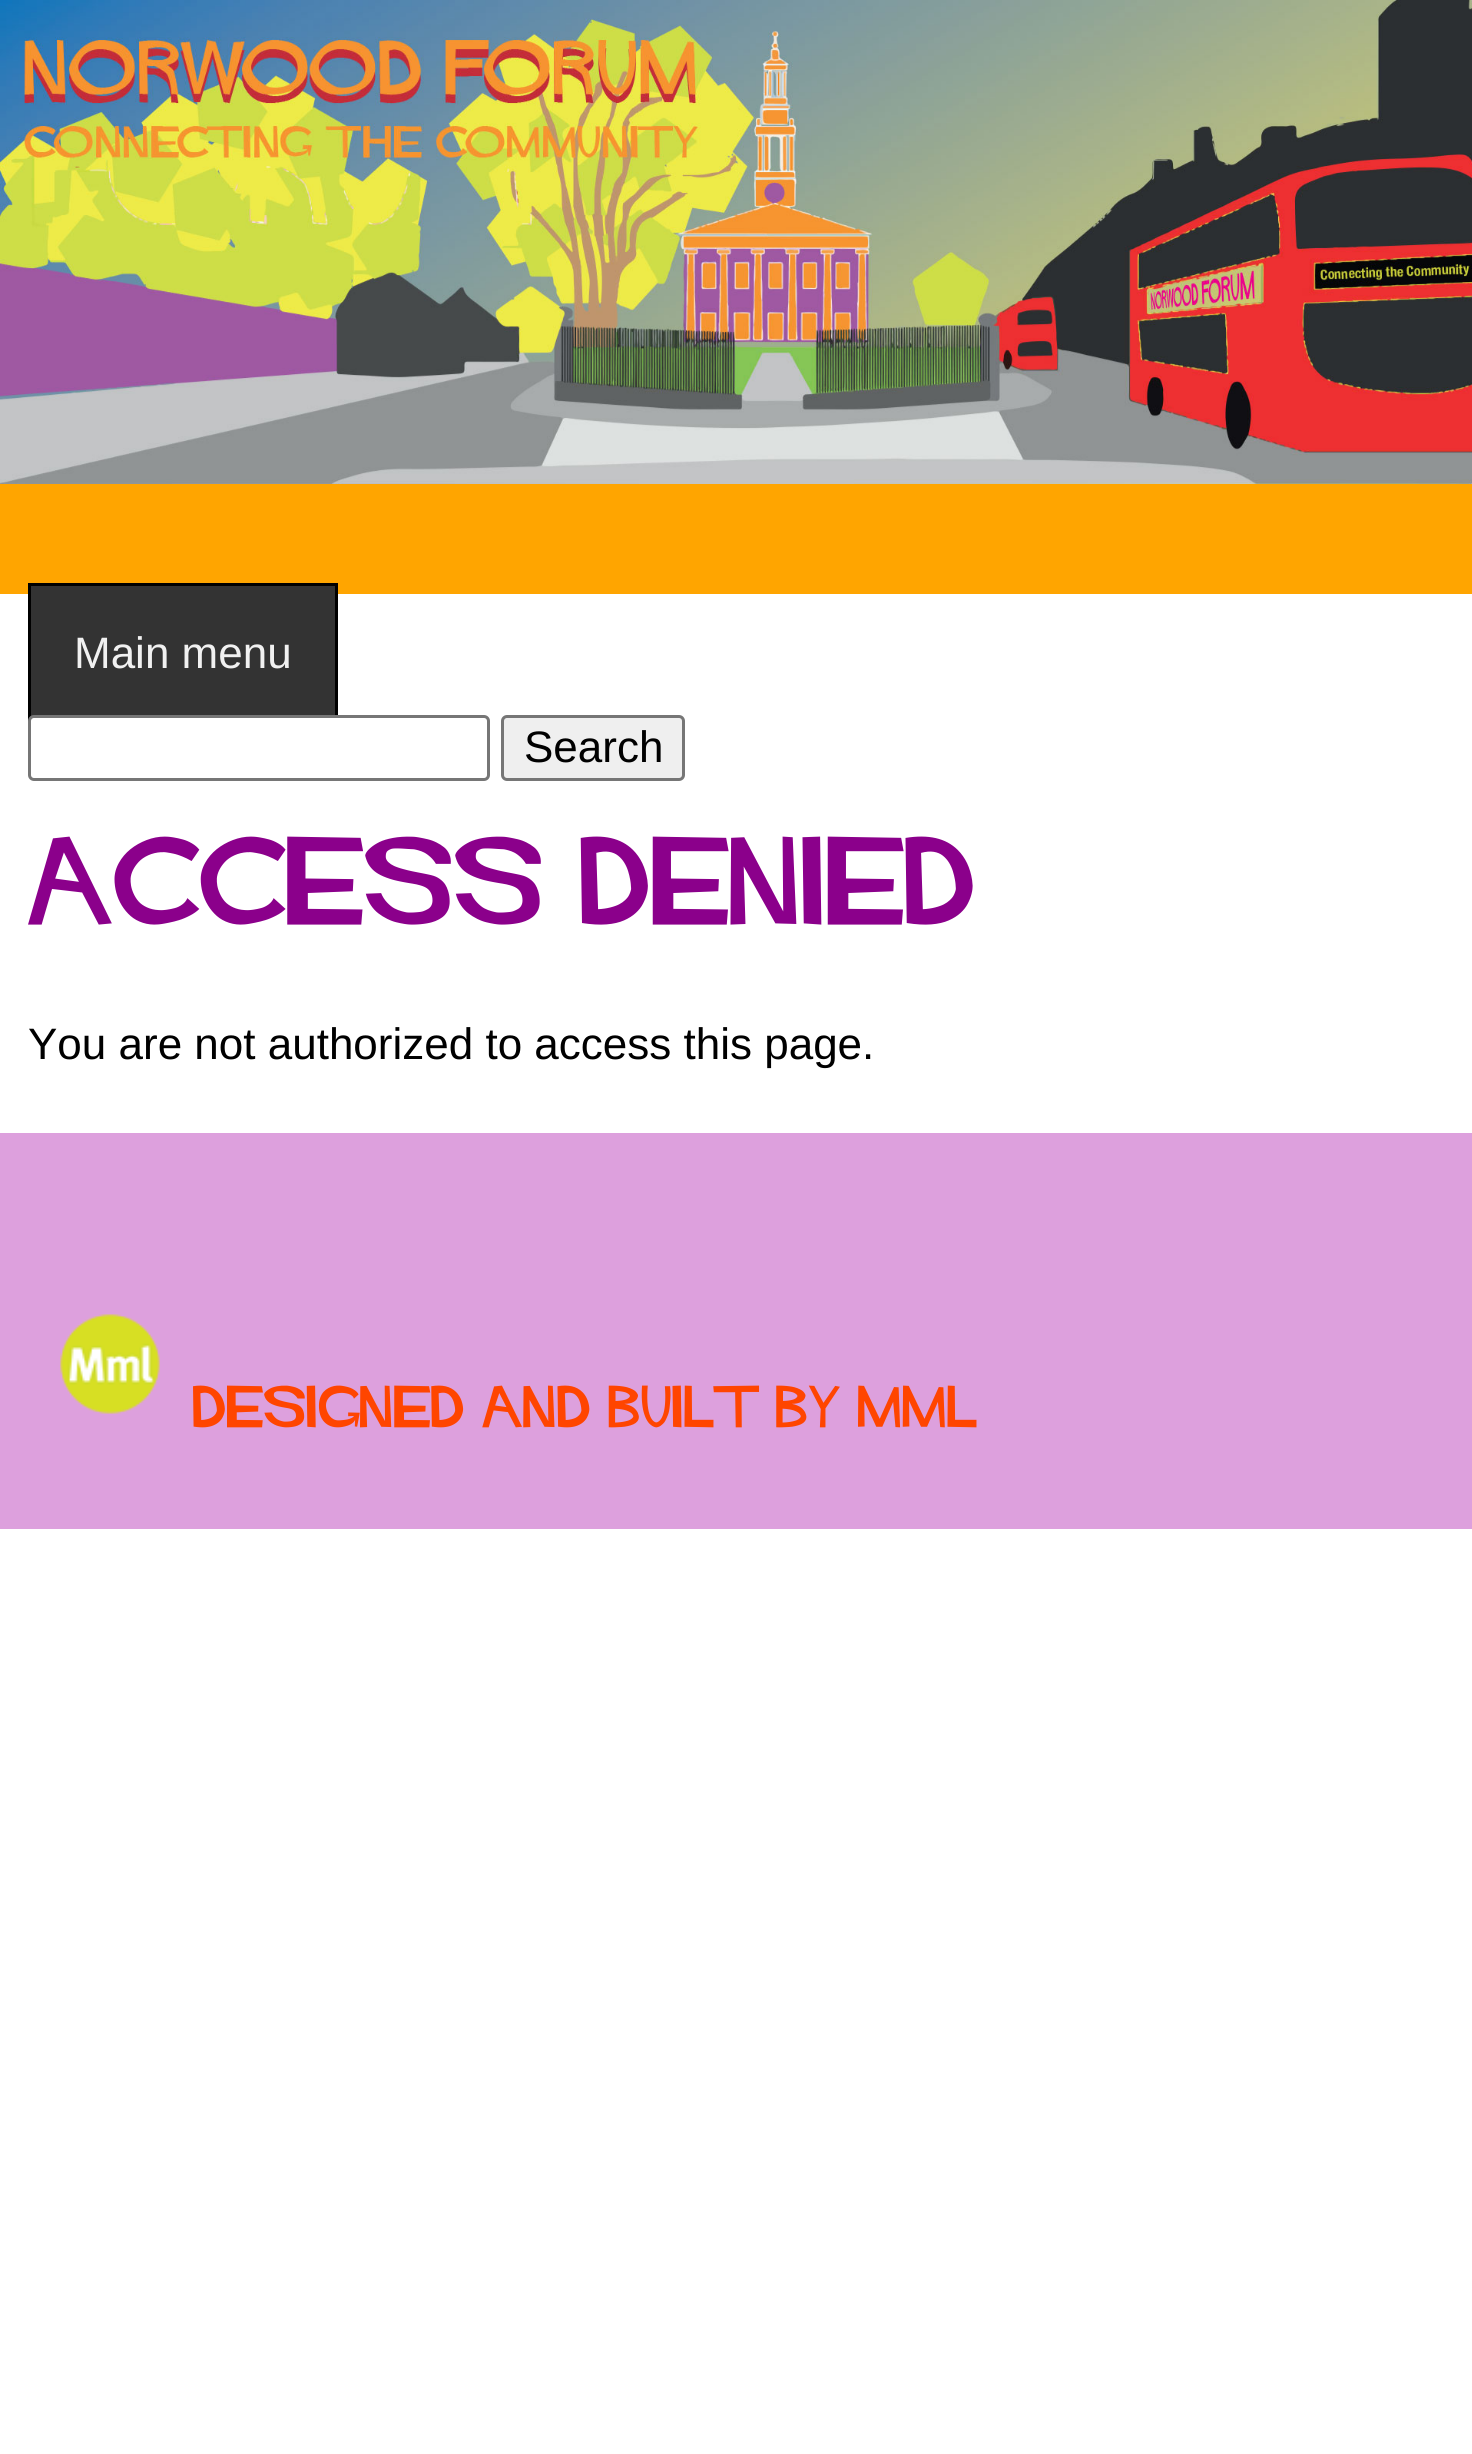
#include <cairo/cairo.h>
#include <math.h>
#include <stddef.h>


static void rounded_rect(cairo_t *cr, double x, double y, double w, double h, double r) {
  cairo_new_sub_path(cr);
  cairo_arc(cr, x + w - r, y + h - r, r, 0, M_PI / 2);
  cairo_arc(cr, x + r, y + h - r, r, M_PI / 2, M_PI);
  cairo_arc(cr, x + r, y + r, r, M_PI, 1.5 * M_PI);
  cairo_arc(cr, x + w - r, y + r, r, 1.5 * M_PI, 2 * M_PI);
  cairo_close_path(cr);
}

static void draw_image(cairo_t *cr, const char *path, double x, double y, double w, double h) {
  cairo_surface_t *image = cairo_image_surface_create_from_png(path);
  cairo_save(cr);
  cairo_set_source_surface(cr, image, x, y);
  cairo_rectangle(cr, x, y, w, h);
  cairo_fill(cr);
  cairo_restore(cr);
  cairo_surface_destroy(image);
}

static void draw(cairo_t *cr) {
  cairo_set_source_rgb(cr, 1, 1, 1);
  cairo_paint(cr);
  cairo_set_source_rgb(cr, 1, 165 / 255.0, 0);
  cairo_rectangle(cr, 0, 484, 1472, 110);
  cairo_fill(cr);
  draw_image(cr, "images/1.png", 0, 0, 1472, 484);
  cairo_set_source_rgb(cr, 51 / 255.0, 51 / 255.0, 51 / 255.0);
  cairo_rectangle(cr, 31, 586, 304, 130);
  cairo_fill(cr);
  cairo_rectangle(cr, 29.5, 584.5, 307, 137);
  cairo_set_source_rgb(cr, 0, 0, 0);
  cairo_set_line_width(cr, 3);
  cairo_stroke(cr);
  cairo_set_source_rgb(cr, 1, 1, 1);
  rounded_rect(cr, 29.5, 716.5, 459, 63, 4.5);
  cairo_fill_preserve(cr);
  cairo_set_source_rgb(cr, 118 / 255.0, 118 / 255.0, 118 / 255.0);
  cairo_stroke(cr);
  cairo_set_source_rgb(cr, 239 / 255.0, 239 / 255.0, 239 / 255.0);
  rounded_rect(cr, 502.5, 716.5, 181, 63, 4.5);
  cairo_fill_preserve(cr);
  cairo_set_source_rgb(cr, 118 / 255.0, 118 / 255.0, 118 / 255.0);
  cairo_stroke(cr);
  cairo_set_source_rgb(cr, 221 / 255.0, 160 / 255.0, 221 / 255.0);
  cairo_rectangle(cr, 0, 1133, 1472, 396);
  cairo_fill(cr);
  draw_image(cr, "images/2.png", 60, 1314, 100, 100);
  cairo_select_font_face(cr, "Liberation Sans", CAIRO_FONT_SLANT_NORMAL, CAIRO_FONT_WEIGHT_NORMAL);
  cairo_set_font_size(cr, 44);
  cairo_set_source_rgb(cr, 241 / 255.0, 241 / 255.0, 241 / 255.0);
  cairo_move_to(cr, 74, 668);
  cairo_show_text(cr, "Main menu");
  cairo_set_source_rgb(cr, 0, 0, 0);
  cairo_move_to(cr, 524, 762);
  cairo_show_text(cr, "Search");
  cairo_select_font_face(cr, "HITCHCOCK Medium", CAIRO_FONT_SLANT_NORMAL, CAIRO_FONT_WEIGHT_NORMAL);
  cairo_set_font_size(cr, 88);
  cairo_set_source_rgb(cr, 139 / 255.0, 0, 139 / 255.0);
  cairo_move_to(cr, 28, 907);
  cairo_show_text(cr, "Access denied");
  cairo_select_font_face(cr, "Liberation Sans", CAIRO_FONT_SLANT_NORMAL, CAIRO_FONT_WEIGHT_NORMAL);
  cairo_set_font_size(cr, 44);
  cairo_set_source_rgb(cr, 0, 0, 0);
  cairo_move_to(cr, 28, 1059);
  cairo_show_text(cr, "You are not authorized to access this page.");
  cairo_select_font_face(cr, "HITCHCOCK Medium", CAIRO_FONT_SLANT_NORMAL, CAIRO_FONT_WEIGHT_NORMAL);
  cairo_set_font_size(cr, 41.75);
  cairo_set_source_rgb(cr, 1, 69 / 255.0, 0);
  cairo_move_to(cr, 193, 1419);
  cairo_show_text(cr, "Designed and built by MML");
}

int main(void) {
  cairo_surface_t *surface = cairo_image_surface_create(CAIRO_FORMAT_RGB24, 1472, 2454);
  cairo_t *cr = cairo_create(surface);
  cairo_font_options_t *options = cairo_font_options_create();
  cairo_font_options_set_hint_metrics(options, CAIRO_HINT_METRICS_OFF);
  cairo_font_options_set_hint_style(options, CAIRO_HINT_STYLE_NONE);
  cairo_set_font_options(cr, options);
  cairo_set_miter_limit(cr, 4);
  draw(cr);
  cairo_surface_write_to_png(surface, "out.png");
  cairo_font_options_destroy(options);
  cairo_destroy(cr);
  cairo_surface_destroy(surface);
  return 0;
}
